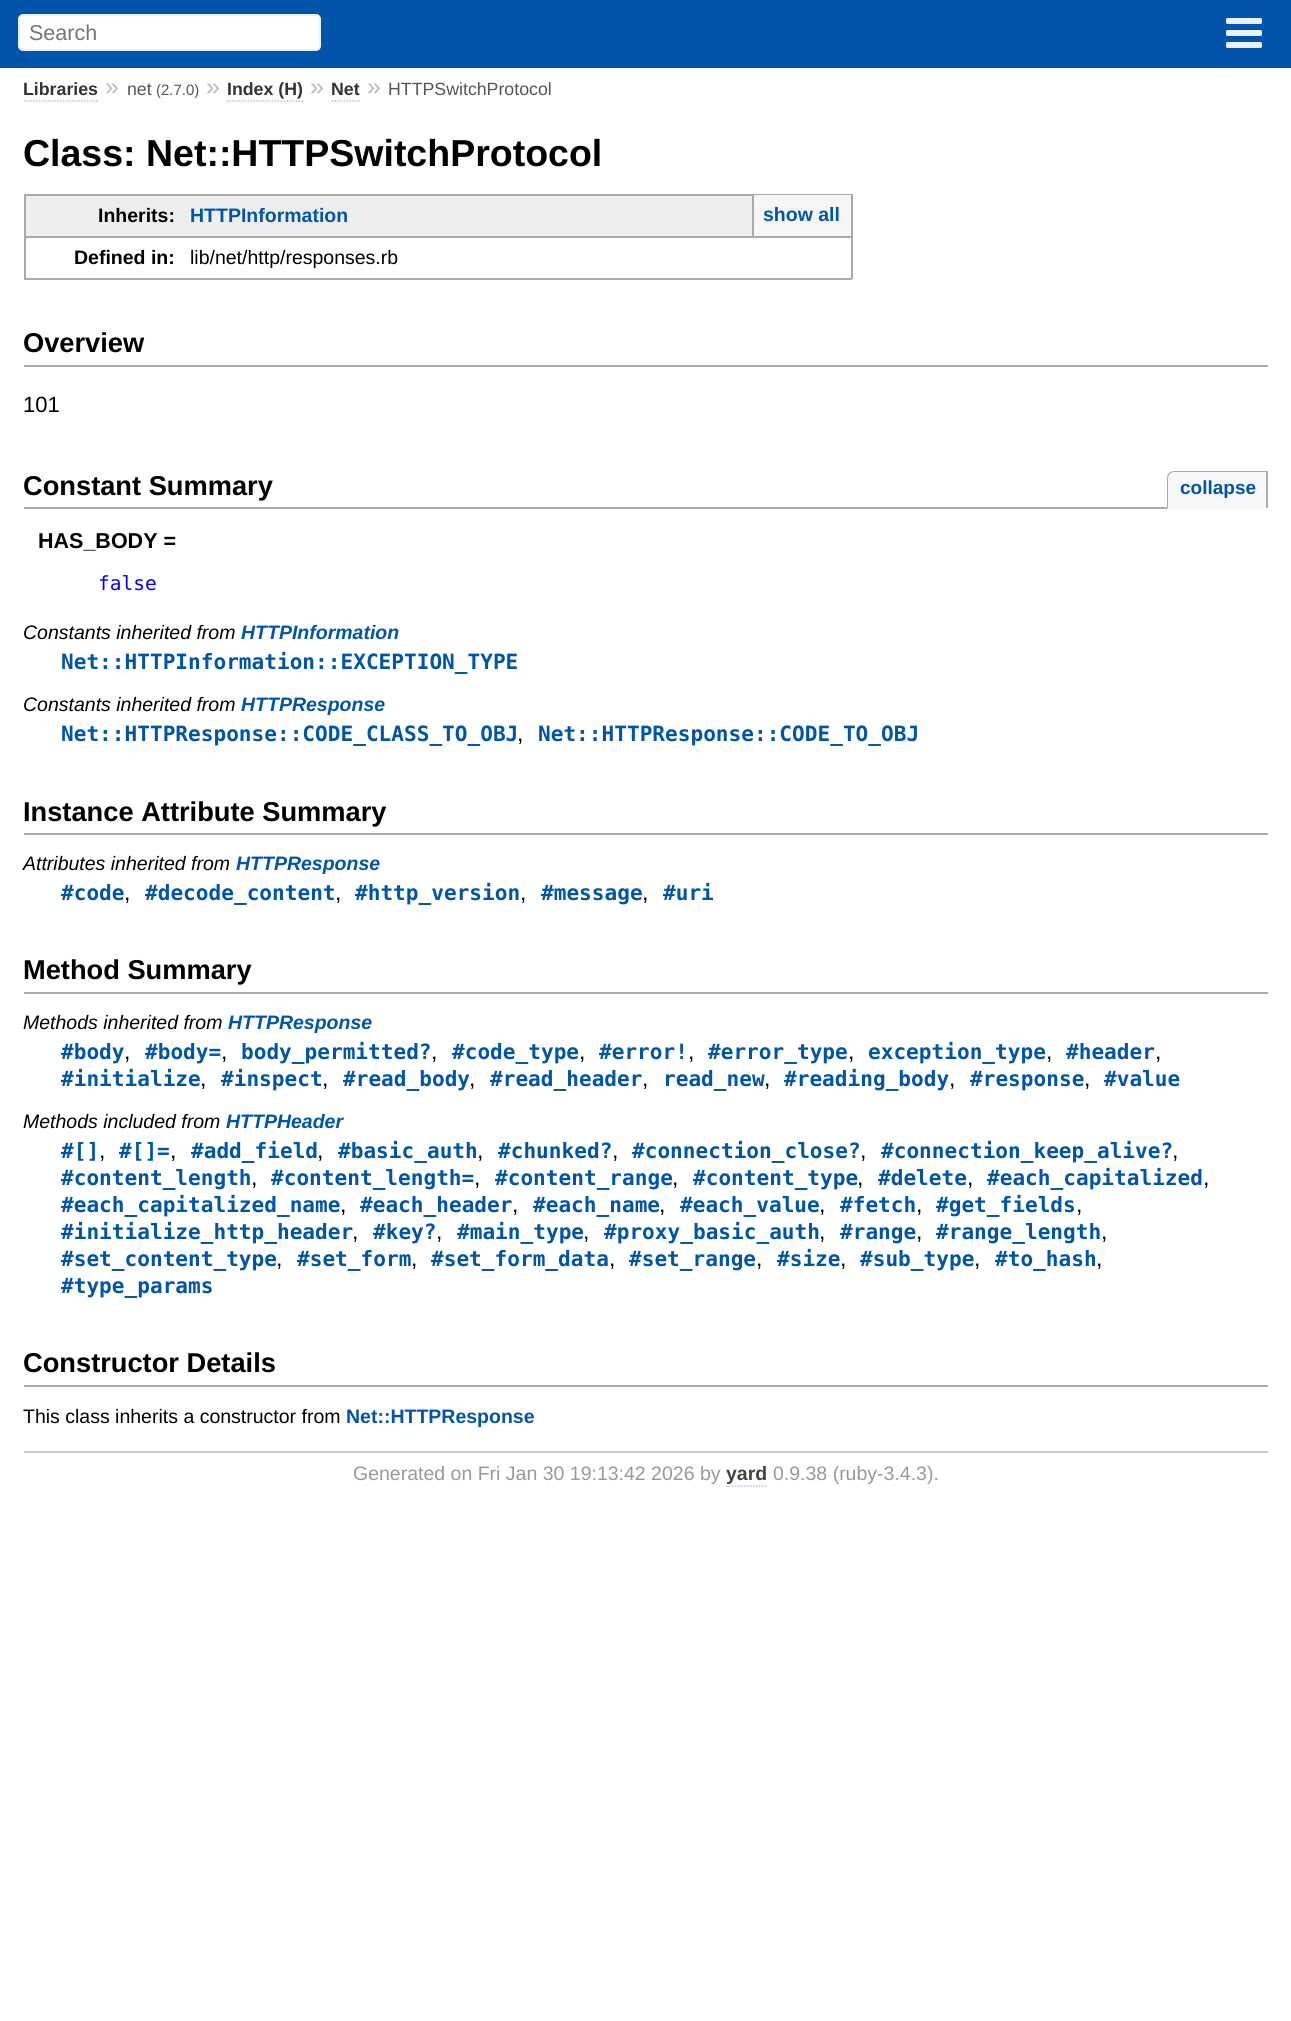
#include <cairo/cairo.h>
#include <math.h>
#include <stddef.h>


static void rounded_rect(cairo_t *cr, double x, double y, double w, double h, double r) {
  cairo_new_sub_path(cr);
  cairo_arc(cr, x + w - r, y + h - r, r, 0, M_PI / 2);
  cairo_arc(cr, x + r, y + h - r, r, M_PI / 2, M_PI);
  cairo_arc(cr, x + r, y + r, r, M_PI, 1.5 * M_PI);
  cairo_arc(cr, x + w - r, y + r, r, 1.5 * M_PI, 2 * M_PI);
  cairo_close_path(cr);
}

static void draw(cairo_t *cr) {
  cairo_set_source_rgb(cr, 1, 1, 1);
  cairo_paint(cr);
  cairo_set_source_rgb(cr, 0, 85 / 255.0, 170 / 255.0);
  cairo_rectangle(cr, 0, 0, 1291, 68);
  cairo_fill(cr);
  cairo_set_source_rgb(cr, 1, 1, 1);
  rounded_rect(cr, 19, 15, 301, 35, 4);
  cairo_fill_preserve(cr);
  cairo_set_source_rgb(cr, 234 / 255.0, 240 / 255.0, 1);
  cairo_stroke(cr);
  rounded_rect(cr, 1226, 18, 36, 6, 1.5);
  cairo_fill(cr);
  rounded_rect(cr, 1226, 30, 36, 6, 1.5);
  cairo_fill(cr);
  rounded_rect(cr, 1226, 42, 36, 6, 1.5);
  cairo_fill(cr);
  cairo_new_path(cr);
  cairo_move_to(cr, 24, 101);
  cairo_line_to(cr, 99, 101);
  cairo_set_source_rgb(cr, 187 / 255.0, 187 / 255.0, 221 / 255.0);
  cairo_set_line_width(cr, 1.5);
  cairo_set_dash(cr, (double[]){1.5, 1.5}, 2, 0);
  cairo_stroke(cr);
  cairo_new_path(cr);
  cairo_move_to(cr, 226.5, 101);
  cairo_line_to(cr, 303, 101);
  cairo_stroke(cr);
  cairo_new_path(cr);
  cairo_move_to(cr, 331.5, 101);
  cairo_line_to(cr, 360, 101);
  cairo_stroke(cr);
  cairo_set_source_rgb(cr, 238 / 255.0, 238 / 255.0, 238 / 255.0);
  cairo_rectangle(cr, 26, 196, 726, 40);
  cairo_fill(cr);
  cairo_set_source_rgb(cr, 170 / 255.0, 170 / 255.0, 170 / 255.0);
  cairo_rectangle(cr, 24, 194, 828, 2);
  cairo_fill(cr);
  cairo_rectangle(cr, 24, 194, 2, 42);
  cairo_fill(cr);
  cairo_rectangle(cr, 24, 236, 828, 2);
  cairo_fill(cr);
  cairo_rectangle(cr, 851, 194, 2, 85);
  cairo_fill(cr);
  cairo_set_source_rgb(cr, 246 / 255.0, 246 / 255.0, 246 / 255.0);
  cairo_rectangle(cr, 754, 195, 97, 41);
  cairo_fill(cr);
  cairo_set_source_rgb(cr, 170 / 255.0, 170 / 255.0, 170 / 255.0);
  cairo_rectangle(cr, 752, 195, 2, 41);
  cairo_fill(cr);
  cairo_rectangle(cr, 24, 278, 167, 2);
  cairo_fill(cr);
  cairo_rectangle(cr, 24, 236, 2, 43);
  cairo_fill(cr);
  cairo_rectangle(cr, 191, 278, 661, 2);
  cairo_fill(cr);
  cairo_rectangle(cr, 24, 365, 1244, 2);
  cairo_fill(cr);
  cairo_rectangle(cr, 24, 507, 1143, 2);
  cairo_fill(cr);
  cairo_set_source_rgb(cr, 248 / 255.0, 248 / 255.0, 248 / 255.0);
  cairo_new_path(cr);
  cairo_move_to(cr, 1175, 471);
  cairo_line_to(cr, 1268, 471);
  cairo_line_to(cr, 1268, 509);
  cairo_line_to(cr, 1167, 509);
  cairo_line_to(cr, 1167, 479);
  cairo_curve_to(cr, 1167, 474.5, 1170.5, 471, 1175, 471);
  cairo_close_path(cr);
  cairo_fill(cr);
  cairo_set_source_rgb(cr, 170 / 255.0, 170 / 255.0, 170 / 255.0);
  cairo_set_fill_rule(cr, CAIRO_FILL_RULE_EVEN_ODD);
  cairo_new_path(cr);
  cairo_move_to(cr, 1174, 471);
  cairo_line_to(cr, 1268, 471);
  cairo_line_to(cr, 1268, 508);
  cairo_line_to(cr, 1167, 508);
  cairo_line_to(cr, 1167, 478);
  cairo_curve_to(cr, 1167, 474, 1170, 471, 1174, 471);
  cairo_close_path(cr);
  cairo_move_to(cr, 1174, 472);
  cairo_line_to(cr, 1266, 472);
  cairo_line_to(cr, 1266, 508);
  cairo_line_to(cr, 1168, 508);
  cairo_line_to(cr, 1168, 478);
  cairo_curve_to(cr, 1168, 475, 1171, 472, 1174, 472);
  cairo_close_path(cr);
  cairo_fill(cr);
  cairo_rectangle(cr, 24, 833, 1244, 2);
  cairo_fill(cr);
  cairo_rectangle(cr, 24, 992, 1244, 2);
  cairo_fill(cr);
  cairo_rectangle(cr, 24, 1385, 1244, 2);
  cairo_fill(cr);
  cairo_set_source_rgb(cr, 204 / 255.0, 204 / 255.0, 204 / 255.0);
  cairo_rectangle(cr, 24, 1451, 1244, 2);
  cairo_fill(cr);
  cairo_new_path(cr);
  cairo_move_to(cr, 726, 1486);
  cairo_line_to(cr, 766.5, 1486);
  cairo_set_source_rgb(cr, 187 / 255.0, 187 / 255.0, 221 / 255.0);
  cairo_stroke(cr);
  cairo_select_font_face(cr, "Liberation Sans", CAIRO_FONT_SLANT_NORMAL, CAIRO_FONT_WEIGHT_NORMAL);
  cairo_set_font_size(cr, 21.5);
  cairo_set_source_rgb(cr, 117 / 255.0, 117 / 255.0, 117 / 255.0);
  cairo_move_to(cr, 29, 40);
  cairo_show_text(cr, "Search");
  cairo_select_font_face(cr, "Liberation Sans", CAIRO_FONT_SLANT_NORMAL, CAIRO_FONT_WEIGHT_BOLD);
  cairo_set_font_size(cr, 17.75);
  cairo_set_source_rgb(cr, 51 / 255.0, 51 / 255.0, 51 / 255.0);
  cairo_move_to(cr, 23, 95);
  cairo_show_text(cr, "Libraries");
  cairo_select_font_face(cr, "Liberation Sans", CAIRO_FONT_SLANT_NORMAL, CAIRO_FONT_WEIGHT_NORMAL);
  cairo_set_font_size(cr, 25);
  cairo_set_source_rgb(cr, 187 / 255.0, 187 / 255.0, 187 / 255.0);
  cairo_move_to(cr, 105, 95);
  cairo_show_text(cr, "»");
  cairo_set_font_size(cr, 17.75);
  cairo_set_source_rgb(cr, 85 / 255.0, 85 / 255.0, 85 / 255.0);
  cairo_move_to(cr, 127, 95);
  cairo_show_text(cr, "net");
  cairo_set_font_size(cr, 15);
  cairo_move_to(cr, 156, 95);
  cairo_show_text(cr, "(2.7.0)");
  cairo_set_font_size(cr, 25);
  cairo_set_source_rgb(cr, 187 / 255.0, 187 / 255.0, 187 / 255.0);
  cairo_move_to(cr, 206, 95);
  cairo_show_text(cr, "»");
  cairo_select_font_face(cr, "Liberation Sans", CAIRO_FONT_SLANT_NORMAL, CAIRO_FONT_WEIGHT_BOLD);
  cairo_set_font_size(cr, 17.75);
  cairo_set_source_rgb(cr, 51 / 255.0, 51 / 255.0, 51 / 255.0);
  cairo_move_to(cr, 227, 95);
  cairo_show_text(cr, "Index (H)");
  cairo_select_font_face(cr, "Liberation Sans", CAIRO_FONT_SLANT_NORMAL, CAIRO_FONT_WEIGHT_NORMAL);
  cairo_set_font_size(cr, 25);
  cairo_set_source_rgb(cr, 187 / 255.0, 187 / 255.0, 187 / 255.0);
  cairo_move_to(cr, 310, 95);
  cairo_show_text(cr, "»");
  cairo_select_font_face(cr, "Liberation Sans", CAIRO_FONT_SLANT_NORMAL, CAIRO_FONT_WEIGHT_BOLD);
  cairo_set_font_size(cr, 17.75);
  cairo_set_source_rgb(cr, 51 / 255.0, 51 / 255.0, 51 / 255.0);
  cairo_move_to(cr, 331, 95);
  cairo_show_text(cr, "Net");
  cairo_select_font_face(cr, "Liberation Sans", CAIRO_FONT_SLANT_NORMAL, CAIRO_FONT_WEIGHT_NORMAL);
  cairo_set_font_size(cr, 25);
  cairo_set_source_rgb(cr, 187 / 255.0, 187 / 255.0, 187 / 255.0);
  cairo_move_to(cr, 367, 95);
  cairo_show_text(cr, "»");
  cairo_set_font_size(cr, 17.75);
  cairo_set_source_rgb(cr, 85 / 255.0, 85 / 255.0, 85 / 255.0);
  cairo_move_to(cr, 388, 95);
  cairo_show_text(cr, "HTTPSwitchProtocol");
  cairo_select_font_face(cr, "Liberation Sans", CAIRO_FONT_SLANT_NORMAL, CAIRO_FONT_WEIGHT_BOLD);
  cairo_set_font_size(cr, 37.5);
  cairo_set_source_rgb(cr, 0, 0, 0);
  cairo_move_to(cr, 23, 166);
  cairo_show_text(cr, "Class: Net::HTTPSwitchProtocol");
  cairo_set_font_size(cr, 19.5);
  cairo_move_to(cr, 98, 222);
  cairo_show_text(cr, "Inherits:");
  cairo_set_source_rgb(cr, 0, 85 / 255.0, 170 / 255.0);
  cairo_move_to(cr, 190, 222);
  cairo_show_text(cr, "HTTPInformation");
  cairo_move_to(cr, 763, 221);
  cairo_show_text(cr, "show all");
  cairo_set_source_rgb(cr, 0, 0, 0);
  cairo_move_to(cr, 74, 264);
  cairo_show_text(cr, "Defined in:");
  cairo_select_font_face(cr, "Liberation Sans", CAIRO_FONT_SLANT_NORMAL, CAIRO_FONT_WEIGHT_NORMAL);
  cairo_move_to(cr, 190, 264);
  cairo_show_text(cr, "lib/net/http/responses.rb");
  cairo_select_font_face(cr, "Liberation Sans", CAIRO_FONT_SLANT_NORMAL, CAIRO_FONT_WEIGHT_BOLD);
  cairo_set_font_size(cr, 27.25);
  cairo_move_to(cr, 23, 352);
  cairo_show_text(cr, "Overview");
  cairo_select_font_face(cr, "Liberation Sans", CAIRO_FONT_SLANT_NORMAL, CAIRO_FONT_WEIGHT_NORMAL);
  cairo_set_font_size(cr, 22);
  cairo_move_to(cr, 23, 412);
  cairo_show_text(cr, "101");
  cairo_select_font_face(cr, "Liberation Sans", CAIRO_FONT_SLANT_NORMAL, CAIRO_FONT_WEIGHT_BOLD);
  cairo_set_font_size(cr, 27.25);
  cairo_move_to(cr, 23, 495);
  cairo_show_text(cr, "Constant Summary");
  cairo_set_font_size(cr, 19);
  cairo_set_source_rgb(cr, 0, 85 / 255.0, 170 / 255.0);
  cairo_move_to(cr, 1180, 494);
  cairo_show_text(cr, "collapse");
  cairo_set_font_size(cr, 21.5);
  cairo_set_source_rgb(cr, 0, 0, 0);
  cairo_move_to(cr, 38, 548);
  cairo_show_text(cr, "HAS_BODY =");
  cairo_select_font_face(cr, "DejaVu Sans Mono", CAIRO_FONT_SLANT_NORMAL, CAIRO_FONT_WEIGHT_NORMAL);
  cairo_set_font_size(cr, 19.5);
  cairo_set_source_rgb(cr, 0, 0, 1);
  cairo_move_to(cr, 98, 590);
  cairo_show_text(cr, "false");
  cairo_select_font_face(cr, "Liberation Sans", CAIRO_FONT_SLANT_ITALIC, CAIRO_FONT_WEIGHT_NORMAL);
  cairo_set_source_rgb(cr, 0, 0, 0);
  cairo_move_to(cr, 23, 639);
  cairo_show_text(cr, "Constants inherited from");
  cairo_select_font_face(cr, "Liberation Sans", CAIRO_FONT_SLANT_ITALIC, CAIRO_FONT_WEIGHT_BOLD);
  cairo_set_source_rgb(cr, 0, 85 / 255.0, 170 / 255.0);
  cairo_move_to(cr, 241, 639);
  cairo_show_text(cr, "HTTPInformation");
  cairo_select_font_face(cr, "DejaVu Sans Mono", CAIRO_FONT_SLANT_NORMAL, CAIRO_FONT_WEIGHT_BOLD);
  cairo_set_font_size(cr, 21.1);
  cairo_move_to(cr, 61, 669);
  cairo_show_text(cr, "Net::HTTPInformation::EXCEPTION_TYPE");
  cairo_select_font_face(cr, "Liberation Sans", CAIRO_FONT_SLANT_ITALIC, CAIRO_FONT_WEIGHT_NORMAL);
  cairo_set_font_size(cr, 19.5);
  cairo_set_source_rgb(cr, 0, 0, 0);
  cairo_move_to(cr, 23, 711);
  cairo_show_text(cr, "Constants inherited from");
  cairo_select_font_face(cr, "Liberation Sans", CAIRO_FONT_SLANT_ITALIC, CAIRO_FONT_WEIGHT_BOLD);
  cairo_set_source_rgb(cr, 0, 85 / 255.0, 170 / 255.0);
  cairo_move_to(cr, 241, 711);
  cairo_show_text(cr, "HTTPResponse");
  cairo_select_font_face(cr, "DejaVu Sans Mono", CAIRO_FONT_SLANT_NORMAL, CAIRO_FONT_WEIGHT_BOLD);
  cairo_set_font_size(cr, 21.1);
  cairo_move_to(cr, 61, 741);
  cairo_show_text(cr, "Net::HTTPResponse::CODE_CLASS_TO_OBJ");
  cairo_select_font_face(cr, "Liberation Sans", CAIRO_FONT_SLANT_NORMAL, CAIRO_FONT_WEIGHT_NORMAL);
  cairo_set_font_size(cr, 23);
  cairo_set_source_rgb(cr, 0, 0, 0);
  cairo_move_to(cr, 517, 741);
  cairo_show_text(cr, ",");
  cairo_select_font_face(cr, "DejaVu Sans Mono", CAIRO_FONT_SLANT_NORMAL, CAIRO_FONT_WEIGHT_BOLD);
  cairo_set_font_size(cr, 21.1);
  cairo_set_source_rgb(cr, 0, 85 / 255.0, 170 / 255.0);
  cairo_move_to(cr, 538, 741);
  cairo_show_text(cr, "Net::HTTPResponse::CODE_TO_OBJ");
  cairo_select_font_face(cr, "Liberation Sans", CAIRO_FONT_SLANT_NORMAL, CAIRO_FONT_WEIGHT_BOLD);
  cairo_set_font_size(cr, 27.25);
  cairo_set_source_rgb(cr, 0, 0, 0);
  cairo_move_to(cr, 23, 821);
  cairo_show_text(cr, "Instance Attribute Summary");
  cairo_select_font_face(cr, "Liberation Sans", CAIRO_FONT_SLANT_ITALIC, CAIRO_FONT_WEIGHT_NORMAL);
  cairo_set_font_size(cr, 19.5);
  cairo_move_to(cr, 23, 870);
  cairo_show_text(cr, "Attributes inherited from");
  cairo_select_font_face(cr, "Liberation Sans", CAIRO_FONT_SLANT_ITALIC, CAIRO_FONT_WEIGHT_BOLD);
  cairo_set_source_rgb(cr, 0, 85 / 255.0, 170 / 255.0);
  cairo_move_to(cr, 236, 870);
  cairo_show_text(cr, "HTTPResponse");
  cairo_select_font_face(cr, "DejaVu Sans Mono", CAIRO_FONT_SLANT_NORMAL, CAIRO_FONT_WEIGHT_BOLD);
  cairo_set_font_size(cr, 21.1);
  cairo_move_to(cr, 61, 900);
  cairo_show_text(cr, "#code");
  cairo_select_font_face(cr, "Liberation Sans", CAIRO_FONT_SLANT_NORMAL, CAIRO_FONT_WEIGHT_NORMAL);
  cairo_set_font_size(cr, 23);
  cairo_set_source_rgb(cr, 0, 0, 0);
  cairo_move_to(cr, 124, 900);
  cairo_show_text(cr, ",");
  cairo_select_font_face(cr, "DejaVu Sans Mono", CAIRO_FONT_SLANT_NORMAL, CAIRO_FONT_WEIGHT_BOLD);
  cairo_set_font_size(cr, 21.1);
  cairo_set_source_rgb(cr, 0, 85 / 255.0, 170 / 255.0);
  cairo_move_to(cr, 145, 900);
  cairo_show_text(cr, "#decode_content");
  cairo_select_font_face(cr, "Liberation Sans", CAIRO_FONT_SLANT_NORMAL, CAIRO_FONT_WEIGHT_NORMAL);
  cairo_set_font_size(cr, 23);
  cairo_set_source_rgb(cr, 0, 0, 0);
  cairo_move_to(cr, 335, 900);
  cairo_show_text(cr, ",");
  cairo_select_font_face(cr, "DejaVu Sans Mono", CAIRO_FONT_SLANT_NORMAL, CAIRO_FONT_WEIGHT_BOLD);
  cairo_set_font_size(cr, 21.1);
  cairo_set_source_rgb(cr, 0, 85 / 255.0, 170 / 255.0);
  cairo_move_to(cr, 355, 900);
  cairo_show_text(cr, "#http_version");
  cairo_select_font_face(cr, "Liberation Sans", CAIRO_FONT_SLANT_NORMAL, CAIRO_FONT_WEIGHT_NORMAL);
  cairo_set_font_size(cr, 23);
  cairo_set_source_rgb(cr, 0, 0, 0);
  cairo_move_to(cr, 520, 900);
  cairo_show_text(cr, ",");
  cairo_select_font_face(cr, "DejaVu Sans Mono", CAIRO_FONT_SLANT_NORMAL, CAIRO_FONT_WEIGHT_BOLD);
  cairo_set_font_size(cr, 21.1);
  cairo_set_source_rgb(cr, 0, 85 / 255.0, 170 / 255.0);
  cairo_move_to(cr, 541, 900);
  cairo_show_text(cr, "#message");
  cairo_select_font_face(cr, "Liberation Sans", CAIRO_FONT_SLANT_NORMAL, CAIRO_FONT_WEIGHT_NORMAL);
  cairo_set_font_size(cr, 23);
  cairo_set_source_rgb(cr, 0, 0, 0);
  cairo_move_to(cr, 642, 900);
  cairo_show_text(cr, ",");
  cairo_select_font_face(cr, "DejaVu Sans Mono", CAIRO_FONT_SLANT_NORMAL, CAIRO_FONT_WEIGHT_BOLD);
  cairo_set_font_size(cr, 21.1);
  cairo_set_source_rgb(cr, 0, 85 / 255.0, 170 / 255.0);
  cairo_move_to(cr, 663, 900);
  cairo_show_text(cr, "#uri");
  cairo_select_font_face(cr, "Liberation Sans", CAIRO_FONT_SLANT_NORMAL, CAIRO_FONT_WEIGHT_BOLD);
  cairo_set_font_size(cr, 27.25);
  cairo_set_source_rgb(cr, 0, 0, 0);
  cairo_move_to(cr, 23, 979);
  cairo_show_text(cr, "Method Summary");
  cairo_select_font_face(cr, "Liberation Sans", CAIRO_FONT_SLANT_ITALIC, CAIRO_FONT_WEIGHT_NORMAL);
  cairo_set_font_size(cr, 19.5);
  cairo_move_to(cr, 23, 1029);
  cairo_show_text(cr, "Methods inherited from");
  cairo_select_font_face(cr, "Liberation Sans", CAIRO_FONT_SLANT_ITALIC, CAIRO_FONT_WEIGHT_BOLD);
  cairo_set_source_rgb(cr, 0, 85 / 255.0, 170 / 255.0);
  cairo_move_to(cr, 228, 1029);
  cairo_show_text(cr, "HTTPResponse");
  cairo_select_font_face(cr, "DejaVu Sans Mono", CAIRO_FONT_SLANT_NORMAL, CAIRO_FONT_WEIGHT_BOLD);
  cairo_set_font_size(cr, 21.1);
  cairo_move_to(cr, 61, 1059);
  cairo_show_text(cr, "#body");
  cairo_select_font_face(cr, "Liberation Sans", CAIRO_FONT_SLANT_NORMAL, CAIRO_FONT_WEIGHT_NORMAL);
  cairo_set_font_size(cr, 23);
  cairo_set_source_rgb(cr, 0, 0, 0);
  cairo_move_to(cr, 124, 1059);
  cairo_show_text(cr, ",");
  cairo_select_font_face(cr, "DejaVu Sans Mono", CAIRO_FONT_SLANT_NORMAL, CAIRO_FONT_WEIGHT_BOLD);
  cairo_set_font_size(cr, 21.1);
  cairo_set_source_rgb(cr, 0, 85 / 255.0, 170 / 255.0);
  cairo_move_to(cr, 145, 1059);
  cairo_show_text(cr, "#body=");
  cairo_select_font_face(cr, "Liberation Sans", CAIRO_FONT_SLANT_NORMAL, CAIRO_FONT_WEIGHT_NORMAL);
  cairo_set_font_size(cr, 23);
  cairo_set_source_rgb(cr, 0, 0, 0);
  cairo_move_to(cr, 221, 1059);
  cairo_show_text(cr, ",");
  cairo_select_font_face(cr, "DejaVu Sans Mono", CAIRO_FONT_SLANT_NORMAL, CAIRO_FONT_WEIGHT_BOLD);
  cairo_set_font_size(cr, 21.1);
  cairo_set_source_rgb(cr, 0, 85 / 255.0, 170 / 255.0);
  cairo_move_to(cr, 241, 1059);
  cairo_show_text(cr, "body_permitted?");
  cairo_select_font_face(cr, "Liberation Sans", CAIRO_FONT_SLANT_NORMAL, CAIRO_FONT_WEIGHT_NORMAL);
  cairo_set_font_size(cr, 23);
  cairo_set_source_rgb(cr, 0, 0, 0);
  cairo_move_to(cr, 431, 1059);
  cairo_show_text(cr, ",");
  cairo_select_font_face(cr, "DejaVu Sans Mono", CAIRO_FONT_SLANT_NORMAL, CAIRO_FONT_WEIGHT_BOLD);
  cairo_set_font_size(cr, 21.1);
  cairo_set_source_rgb(cr, 0, 85 / 255.0, 170 / 255.0);
  cairo_move_to(cr, 452, 1059);
  cairo_show_text(cr, "#code_type");
  cairo_select_font_face(cr, "Liberation Sans", CAIRO_FONT_SLANT_NORMAL, CAIRO_FONT_WEIGHT_NORMAL);
  cairo_set_font_size(cr, 23);
  cairo_set_source_rgb(cr, 0, 0, 0);
  cairo_move_to(cr, 579, 1059);
  cairo_show_text(cr, ",");
  cairo_select_font_face(cr, "DejaVu Sans Mono", CAIRO_FONT_SLANT_NORMAL, CAIRO_FONT_WEIGHT_BOLD);
  cairo_set_font_size(cr, 21.1);
  cairo_set_source_rgb(cr, 0, 85 / 255.0, 170 / 255.0);
  cairo_move_to(cr, 599, 1059);
  cairo_show_text(cr, "#error!");
  cairo_select_font_face(cr, "Liberation Sans", CAIRO_FONT_SLANT_NORMAL, CAIRO_FONT_WEIGHT_NORMAL);
  cairo_set_font_size(cr, 23);
  cairo_set_source_rgb(cr, 0, 0, 0);
  cairo_move_to(cr, 688, 1059);
  cairo_show_text(cr, ",");
  cairo_select_font_face(cr, "DejaVu Sans Mono", CAIRO_FONT_SLANT_NORMAL, CAIRO_FONT_WEIGHT_BOLD);
  cairo_set_font_size(cr, 21.1);
  cairo_set_source_rgb(cr, 0, 85 / 255.0, 170 / 255.0);
  cairo_move_to(cr, 708, 1059);
  cairo_show_text(cr, "#error_type");
  cairo_select_font_face(cr, "Liberation Sans", CAIRO_FONT_SLANT_NORMAL, CAIRO_FONT_WEIGHT_NORMAL);
  cairo_set_font_size(cr, 23);
  cairo_set_source_rgb(cr, 0, 0, 0);
  cairo_move_to(cr, 848, 1059);
  cairo_show_text(cr, ",");
  cairo_select_font_face(cr, "DejaVu Sans Mono", CAIRO_FONT_SLANT_NORMAL, CAIRO_FONT_WEIGHT_BOLD);
  cairo_set_font_size(cr, 21.1);
  cairo_set_source_rgb(cr, 0, 85 / 255.0, 170 / 255.0);
  cairo_move_to(cr, 868, 1059);
  cairo_show_text(cr, "exception_type");
  cairo_select_font_face(cr, "Liberation Sans", CAIRO_FONT_SLANT_NORMAL, CAIRO_FONT_WEIGHT_NORMAL);
  cairo_set_font_size(cr, 23);
  cairo_set_source_rgb(cr, 0, 0, 0);
  cairo_move_to(cr, 1046, 1059);
  cairo_show_text(cr, ",");
  cairo_select_font_face(cr, "DejaVu Sans Mono", CAIRO_FONT_SLANT_NORMAL, CAIRO_FONT_WEIGHT_BOLD);
  cairo_set_font_size(cr, 21.1);
  cairo_set_source_rgb(cr, 0, 85 / 255.0, 170 / 255.0);
  cairo_move_to(cr, 1066, 1059);
  cairo_show_text(cr, "#header");
  cairo_select_font_face(cr, "Liberation Sans", CAIRO_FONT_SLANT_NORMAL, CAIRO_FONT_WEIGHT_NORMAL);
  cairo_set_font_size(cr, 23);
  cairo_set_source_rgb(cr, 0, 0, 0);
  cairo_move_to(cr, 1155, 1059);
  cairo_show_text(cr, ",");
  cairo_select_font_face(cr, "DejaVu Sans Mono", CAIRO_FONT_SLANT_NORMAL, CAIRO_FONT_WEIGHT_BOLD);
  cairo_set_font_size(cr, 21.1);
  cairo_set_source_rgb(cr, 0, 85 / 255.0, 170 / 255.0);
  cairo_move_to(cr, 61, 1086);
  cairo_show_text(cr, "#initialize");
  cairo_select_font_face(cr, "Liberation Sans", CAIRO_FONT_SLANT_NORMAL, CAIRO_FONT_WEIGHT_NORMAL);
  cairo_set_font_size(cr, 23);
  cairo_set_source_rgb(cr, 0, 0, 0);
  cairo_move_to(cr, 200, 1086);
  cairo_show_text(cr, ",");
  cairo_select_font_face(cr, "DejaVu Sans Mono", CAIRO_FONT_SLANT_NORMAL, CAIRO_FONT_WEIGHT_BOLD);
  cairo_set_font_size(cr, 21.1);
  cairo_set_source_rgb(cr, 0, 85 / 255.0, 170 / 255.0);
  cairo_move_to(cr, 221, 1086);
  cairo_show_text(cr, "#inspect");
  cairo_select_font_face(cr, "Liberation Sans", CAIRO_FONT_SLANT_NORMAL, CAIRO_FONT_WEIGHT_NORMAL);
  cairo_set_font_size(cr, 23);
  cairo_set_source_rgb(cr, 0, 0, 0);
  cairo_move_to(cr, 322, 1086);
  cairo_show_text(cr, ",");
  cairo_select_font_face(cr, "DejaVu Sans Mono", CAIRO_FONT_SLANT_NORMAL, CAIRO_FONT_WEIGHT_BOLD);
  cairo_set_font_size(cr, 21.1);
  cairo_set_source_rgb(cr, 0, 85 / 255.0, 170 / 255.0);
  cairo_move_to(cr, 343, 1086);
  cairo_show_text(cr, "#read_body");
  cairo_select_font_face(cr, "Liberation Sans", CAIRO_FONT_SLANT_NORMAL, CAIRO_FONT_WEIGHT_NORMAL);
  cairo_set_font_size(cr, 23);
  cairo_set_source_rgb(cr, 0, 0, 0);
  cairo_move_to(cr, 469, 1086);
  cairo_show_text(cr, ",");
  cairo_select_font_face(cr, "DejaVu Sans Mono", CAIRO_FONT_SLANT_NORMAL, CAIRO_FONT_WEIGHT_BOLD);
  cairo_set_font_size(cr, 21.1);
  cairo_set_source_rgb(cr, 0, 85 / 255.0, 170 / 255.0);
  cairo_move_to(cr, 490, 1086);
  cairo_show_text(cr, "#read_header");
  cairo_select_font_face(cr, "Liberation Sans", CAIRO_FONT_SLANT_NORMAL, CAIRO_FONT_WEIGHT_NORMAL);
  cairo_set_font_size(cr, 23);
  cairo_set_source_rgb(cr, 0, 0, 0);
  cairo_move_to(cr, 642, 1086);
  cairo_show_text(cr, ",");
  cairo_select_font_face(cr, "DejaVu Sans Mono", CAIRO_FONT_SLANT_NORMAL, CAIRO_FONT_WEIGHT_BOLD);
  cairo_set_font_size(cr, 21.1);
  cairo_set_source_rgb(cr, 0, 85 / 255.0, 170 / 255.0);
  cairo_move_to(cr, 663, 1086);
  cairo_show_text(cr, "read_new");
  cairo_select_font_face(cr, "Liberation Sans", CAIRO_FONT_SLANT_NORMAL, CAIRO_FONT_WEIGHT_NORMAL);
  cairo_set_font_size(cr, 23);
  cairo_set_source_rgb(cr, 0, 0, 0);
  cairo_move_to(cr, 764, 1086);
  cairo_show_text(cr, ",");
  cairo_select_font_face(cr, "DejaVu Sans Mono", CAIRO_FONT_SLANT_NORMAL, CAIRO_FONT_WEIGHT_BOLD);
  cairo_set_font_size(cr, 21.1);
  cairo_set_source_rgb(cr, 0, 85 / 255.0, 170 / 255.0);
  cairo_move_to(cr, 784, 1086);
  cairo_show_text(cr, "#reading_body");
  cairo_select_font_face(cr, "Liberation Sans", CAIRO_FONT_SLANT_NORMAL, CAIRO_FONT_WEIGHT_NORMAL);
  cairo_set_font_size(cr, 23);
  cairo_set_source_rgb(cr, 0, 0, 0);
  cairo_move_to(cr, 949, 1086);
  cairo_show_text(cr, ",");
  cairo_select_font_face(cr, "DejaVu Sans Mono", CAIRO_FONT_SLANT_NORMAL, CAIRO_FONT_WEIGHT_BOLD);
  cairo_set_font_size(cr, 21.1);
  cairo_set_source_rgb(cr, 0, 85 / 255.0, 170 / 255.0);
  cairo_move_to(cr, 970, 1086);
  cairo_show_text(cr, "#response");
  cairo_select_font_face(cr, "Liberation Sans", CAIRO_FONT_SLANT_NORMAL, CAIRO_FONT_WEIGHT_NORMAL);
  cairo_set_font_size(cr, 23);
  cairo_set_source_rgb(cr, 0, 0, 0);
  cairo_move_to(cr, 1084, 1086);
  cairo_show_text(cr, ",");
  cairo_select_font_face(cr, "DejaVu Sans Mono", CAIRO_FONT_SLANT_NORMAL, CAIRO_FONT_WEIGHT_BOLD);
  cairo_set_font_size(cr, 21.1);
  cairo_set_source_rgb(cr, 0, 85 / 255.0, 170 / 255.0);
  cairo_move_to(cr, 1104, 1086);
  cairo_show_text(cr, "#value");
  cairo_select_font_face(cr, "Liberation Sans", CAIRO_FONT_SLANT_ITALIC, CAIRO_FONT_WEIGHT_NORMAL);
  cairo_set_font_size(cr, 19.5);
  cairo_set_source_rgb(cr, 0, 0, 0);
  cairo_move_to(cr, 23, 1128);
  cairo_show_text(cr, "Methods included from");
  cairo_select_font_face(cr, "Liberation Sans", CAIRO_FONT_SLANT_ITALIC, CAIRO_FONT_WEIGHT_BOLD);
  cairo_set_source_rgb(cr, 0, 85 / 255.0, 170 / 255.0);
  cairo_move_to(cr, 226, 1128);
  cairo_show_text(cr, "HTTPHeader");
  cairo_select_font_face(cr, "DejaVu Sans Mono", CAIRO_FONT_SLANT_NORMAL, CAIRO_FONT_WEIGHT_BOLD);
  cairo_set_font_size(cr, 21.1);
  cairo_move_to(cr, 61, 1158);
  cairo_show_text(cr, "#[]");
  cairo_select_font_face(cr, "Liberation Sans", CAIRO_FONT_SLANT_NORMAL, CAIRO_FONT_WEIGHT_NORMAL);
  cairo_set_font_size(cr, 23);
  cairo_set_source_rgb(cr, 0, 0, 0);
  cairo_move_to(cr, 99, 1158);
  cairo_show_text(cr, ",");
  cairo_select_font_face(cr, "DejaVu Sans Mono", CAIRO_FONT_SLANT_NORMAL, CAIRO_FONT_WEIGHT_BOLD);
  cairo_set_font_size(cr, 21.1);
  cairo_set_source_rgb(cr, 0, 85 / 255.0, 170 / 255.0);
  cairo_move_to(cr, 119, 1158);
  cairo_show_text(cr, "#[]=");
  cairo_select_font_face(cr, "Liberation Sans", CAIRO_FONT_SLANT_NORMAL, CAIRO_FONT_WEIGHT_NORMAL);
  cairo_set_font_size(cr, 23);
  cairo_set_source_rgb(cr, 0, 0, 0);
  cairo_move_to(cr, 170, 1158);
  cairo_show_text(cr, ",");
  cairo_select_font_face(cr, "DejaVu Sans Mono", CAIRO_FONT_SLANT_NORMAL, CAIRO_FONT_WEIGHT_BOLD);
  cairo_set_font_size(cr, 21.1);
  cairo_set_source_rgb(cr, 0, 85 / 255.0, 170 / 255.0);
  cairo_move_to(cr, 191, 1158);
  cairo_show_text(cr, "#add_field");
  cairo_select_font_face(cr, "Liberation Sans", CAIRO_FONT_SLANT_NORMAL, CAIRO_FONT_WEIGHT_NORMAL);
  cairo_set_font_size(cr, 23);
  cairo_set_source_rgb(cr, 0, 0, 0);
  cairo_move_to(cr, 317, 1158);
  cairo_show_text(cr, ",");
  cairo_select_font_face(cr, "DejaVu Sans Mono", CAIRO_FONT_SLANT_NORMAL, CAIRO_FONT_WEIGHT_BOLD);
  cairo_set_font_size(cr, 21.1);
  cairo_set_source_rgb(cr, 0, 85 / 255.0, 170 / 255.0);
  cairo_move_to(cr, 338, 1158);
  cairo_show_text(cr, "#basic_auth");
  cairo_select_font_face(cr, "Liberation Sans", CAIRO_FONT_SLANT_NORMAL, CAIRO_FONT_WEIGHT_NORMAL);
  cairo_set_font_size(cr, 23);
  cairo_set_source_rgb(cr, 0, 0, 0);
  cairo_move_to(cr, 477, 1158);
  cairo_show_text(cr, ",");
  cairo_select_font_face(cr, "DejaVu Sans Mono", CAIRO_FONT_SLANT_NORMAL, CAIRO_FONT_WEIGHT_BOLD);
  cairo_set_font_size(cr, 21.1);
  cairo_set_source_rgb(cr, 0, 85 / 255.0, 170 / 255.0);
  cairo_move_to(cr, 498, 1158);
  cairo_show_text(cr, "#chunked?");
  cairo_select_font_face(cr, "Liberation Sans", CAIRO_FONT_SLANT_NORMAL, CAIRO_FONT_WEIGHT_NORMAL);
  cairo_set_font_size(cr, 23);
  cairo_set_source_rgb(cr, 0, 0, 0);
  cairo_move_to(cr, 612, 1158);
  cairo_show_text(cr, ",");
  cairo_select_font_face(cr, "DejaVu Sans Mono", CAIRO_FONT_SLANT_NORMAL, CAIRO_FONT_WEIGHT_BOLD);
  cairo_set_font_size(cr, 21.1);
  cairo_set_source_rgb(cr, 0, 85 / 255.0, 170 / 255.0);
  cairo_move_to(cr, 632, 1158);
  cairo_show_text(cr, "#connection_close?");
  cairo_select_font_face(cr, "Liberation Sans", CAIRO_FONT_SLANT_NORMAL, CAIRO_FONT_WEIGHT_NORMAL);
  cairo_set_font_size(cr, 23);
  cairo_set_source_rgb(cr, 0, 0, 0);
  cairo_move_to(cr, 860, 1158);
  cairo_show_text(cr, ",");
  cairo_select_font_face(cr, "DejaVu Sans Mono", CAIRO_FONT_SLANT_NORMAL, CAIRO_FONT_WEIGHT_BOLD);
  cairo_set_font_size(cr, 21.1);
  cairo_set_source_rgb(cr, 0, 85 / 255.0, 170 / 255.0);
  cairo_move_to(cr, 881, 1158);
  cairo_show_text(cr, "#connection_keep_alive?");
  cairo_select_font_face(cr, "Liberation Sans", CAIRO_FONT_SLANT_NORMAL, CAIRO_FONT_WEIGHT_NORMAL);
  cairo_set_font_size(cr, 23);
  cairo_set_source_rgb(cr, 0, 0, 0);
  cairo_move_to(cr, 1172, 1158);
  cairo_show_text(cr, ",");
  cairo_select_font_face(cr, "DejaVu Sans Mono", CAIRO_FONT_SLANT_NORMAL, CAIRO_FONT_WEIGHT_BOLD);
  cairo_set_font_size(cr, 21.1);
  cairo_set_source_rgb(cr, 0, 85 / 255.0, 170 / 255.0);
  cairo_move_to(cr, 61, 1185);
  cairo_show_text(cr, "#content_length");
  cairo_select_font_face(cr, "Liberation Sans", CAIRO_FONT_SLANT_NORMAL, CAIRO_FONT_WEIGHT_NORMAL);
  cairo_set_font_size(cr, 23);
  cairo_set_source_rgb(cr, 0, 0, 0);
  cairo_move_to(cr, 251, 1185);
  cairo_show_text(cr, ",");
  cairo_select_font_face(cr, "DejaVu Sans Mono", CAIRO_FONT_SLANT_NORMAL, CAIRO_FONT_WEIGHT_BOLD);
  cairo_set_font_size(cr, 21.1);
  cairo_set_source_rgb(cr, 0, 85 / 255.0, 170 / 255.0);
  cairo_move_to(cr, 271, 1185);
  cairo_show_text(cr, "#content_length=");
  cairo_select_font_face(cr, "Liberation Sans", CAIRO_FONT_SLANT_NORMAL, CAIRO_FONT_WEIGHT_NORMAL);
  cairo_set_font_size(cr, 23);
  cairo_set_source_rgb(cr, 0, 0, 0);
  cairo_move_to(cr, 474, 1185);
  cairo_show_text(cr, ",");
  cairo_select_font_face(cr, "DejaVu Sans Mono", CAIRO_FONT_SLANT_NORMAL, CAIRO_FONT_WEIGHT_BOLD);
  cairo_set_font_size(cr, 21.1);
  cairo_set_source_rgb(cr, 0, 85 / 255.0, 170 / 255.0);
  cairo_move_to(cr, 495, 1185);
  cairo_show_text(cr, "#content_range");
  cairo_select_font_face(cr, "Liberation Sans", CAIRO_FONT_SLANT_NORMAL, CAIRO_FONT_WEIGHT_NORMAL);
  cairo_set_font_size(cr, 23);
  cairo_set_source_rgb(cr, 0, 0, 0);
  cairo_move_to(cr, 672, 1185);
  cairo_show_text(cr, ",");
  cairo_select_font_face(cr, "DejaVu Sans Mono", CAIRO_FONT_SLANT_NORMAL, CAIRO_FONT_WEIGHT_BOLD);
  cairo_set_font_size(cr, 21.1);
  cairo_set_source_rgb(cr, 0, 85 / 255.0, 170 / 255.0);
  cairo_move_to(cr, 693, 1185);
  cairo_show_text(cr, "#content_type");
  cairo_select_font_face(cr, "Liberation Sans", CAIRO_FONT_SLANT_NORMAL, CAIRO_FONT_WEIGHT_NORMAL);
  cairo_set_font_size(cr, 23);
  cairo_set_source_rgb(cr, 0, 0, 0);
  cairo_move_to(cr, 857, 1185);
  cairo_show_text(cr, ",");
  cairo_select_font_face(cr, "DejaVu Sans Mono", CAIRO_FONT_SLANT_NORMAL, CAIRO_FONT_WEIGHT_BOLD);
  cairo_set_font_size(cr, 21.1);
  cairo_set_source_rgb(cr, 0, 85 / 255.0, 170 / 255.0);
  cairo_move_to(cr, 878, 1185);
  cairo_show_text(cr, "#delete");
  cairo_select_font_face(cr, "Liberation Sans", CAIRO_FONT_SLANT_NORMAL, CAIRO_FONT_WEIGHT_NORMAL);
  cairo_set_font_size(cr, 23);
  cairo_set_source_rgb(cr, 0, 0, 0);
  cairo_move_to(cr, 967, 1185);
  cairo_show_text(cr, ",");
  cairo_select_font_face(cr, "DejaVu Sans Mono", CAIRO_FONT_SLANT_NORMAL, CAIRO_FONT_WEIGHT_BOLD);
  cairo_set_font_size(cr, 21.1);
  cairo_set_source_rgb(cr, 0, 85 / 255.0, 170 / 255.0);
  cairo_move_to(cr, 987, 1185);
  cairo_show_text(cr, "#each_capitalized");
  cairo_select_font_face(cr, "Liberation Sans", CAIRO_FONT_SLANT_NORMAL, CAIRO_FONT_WEIGHT_NORMAL);
  cairo_set_font_size(cr, 23);
  cairo_set_source_rgb(cr, 0, 0, 0);
  cairo_move_to(cr, 1203, 1185);
  cairo_show_text(cr, ",");
  cairo_select_font_face(cr, "DejaVu Sans Mono", CAIRO_FONT_SLANT_NORMAL, CAIRO_FONT_WEIGHT_BOLD);
  cairo_set_font_size(cr, 21.1);
  cairo_set_source_rgb(cr, 0, 85 / 255.0, 170 / 255.0);
  cairo_move_to(cr, 61, 1212);
  cairo_show_text(cr, "#each_capitalized_name");
  cairo_select_font_face(cr, "Liberation Sans", CAIRO_FONT_SLANT_NORMAL, CAIRO_FONT_WEIGHT_NORMAL);
  cairo_set_font_size(cr, 23);
  cairo_set_source_rgb(cr, 0, 0, 0);
  cairo_move_to(cr, 340, 1212);
  cairo_show_text(cr, ",");
  cairo_select_font_face(cr, "DejaVu Sans Mono", CAIRO_FONT_SLANT_NORMAL, CAIRO_FONT_WEIGHT_BOLD);
  cairo_set_font_size(cr, 21.1);
  cairo_set_source_rgb(cr, 0, 85 / 255.0, 170 / 255.0);
  cairo_move_to(cr, 360, 1212);
  cairo_show_text(cr, "#each_header");
  cairo_select_font_face(cr, "Liberation Sans", CAIRO_FONT_SLANT_NORMAL, CAIRO_FONT_WEIGHT_NORMAL);
  cairo_set_font_size(cr, 23);
  cairo_set_source_rgb(cr, 0, 0, 0);
  cairo_move_to(cr, 512, 1212);
  cairo_show_text(cr, ",");
  cairo_select_font_face(cr, "DejaVu Sans Mono", CAIRO_FONT_SLANT_NORMAL, CAIRO_FONT_WEIGHT_BOLD);
  cairo_set_font_size(cr, 21.1);
  cairo_set_source_rgb(cr, 0, 85 / 255.0, 170 / 255.0);
  cairo_move_to(cr, 533, 1212);
  cairo_show_text(cr, "#each_name");
  cairo_select_font_face(cr, "Liberation Sans", CAIRO_FONT_SLANT_NORMAL, CAIRO_FONT_WEIGHT_NORMAL);
  cairo_set_font_size(cr, 23);
  cairo_set_source_rgb(cr, 0, 0, 0);
  cairo_move_to(cr, 659, 1212);
  cairo_show_text(cr, ",");
  cairo_select_font_face(cr, "DejaVu Sans Mono", CAIRO_FONT_SLANT_NORMAL, CAIRO_FONT_WEIGHT_BOLD);
  cairo_set_font_size(cr, 21.1);
  cairo_set_source_rgb(cr, 0, 85 / 255.0, 170 / 255.0);
  cairo_move_to(cr, 680, 1212);
  cairo_show_text(cr, "#each_value");
  cairo_select_font_face(cr, "Liberation Sans", CAIRO_FONT_SLANT_NORMAL, CAIRO_FONT_WEIGHT_NORMAL);
  cairo_set_font_size(cr, 23);
  cairo_set_source_rgb(cr, 0, 0, 0);
  cairo_move_to(cr, 819, 1212);
  cairo_show_text(cr, ",");
  cairo_select_font_face(cr, "DejaVu Sans Mono", CAIRO_FONT_SLANT_NORMAL, CAIRO_FONT_WEIGHT_BOLD);
  cairo_set_font_size(cr, 21.1);
  cairo_set_source_rgb(cr, 0, 85 / 255.0, 170 / 255.0);
  cairo_move_to(cr, 840, 1212);
  cairo_show_text(cr, "#fetch");
  cairo_select_font_face(cr, "Liberation Sans", CAIRO_FONT_SLANT_NORMAL, CAIRO_FONT_WEIGHT_NORMAL);
  cairo_set_font_size(cr, 23);
  cairo_set_source_rgb(cr, 0, 0, 0);
  cairo_move_to(cr, 916, 1212);
  cairo_show_text(cr, ",");
  cairo_select_font_face(cr, "DejaVu Sans Mono", CAIRO_FONT_SLANT_NORMAL, CAIRO_FONT_WEIGHT_BOLD);
  cairo_set_font_size(cr, 21.1);
  cairo_set_source_rgb(cr, 0, 85 / 255.0, 170 / 255.0);
  cairo_move_to(cr, 936, 1212);
  cairo_show_text(cr, "#get_fields");
  cairo_select_font_face(cr, "Liberation Sans", CAIRO_FONT_SLANT_NORMAL, CAIRO_FONT_WEIGHT_NORMAL);
  cairo_set_font_size(cr, 23);
  cairo_set_source_rgb(cr, 0, 0, 0);
  cairo_move_to(cr, 1076, 1212);
  cairo_show_text(cr, ",");
  cairo_select_font_face(cr, "DejaVu Sans Mono", CAIRO_FONT_SLANT_NORMAL, CAIRO_FONT_WEIGHT_BOLD);
  cairo_set_font_size(cr, 21.1);
  cairo_set_source_rgb(cr, 0, 85 / 255.0, 170 / 255.0);
  cairo_move_to(cr, 61, 1239);
  cairo_show_text(cr, "#initialize_http_header");
  cairo_select_font_face(cr, "Liberation Sans", CAIRO_FONT_SLANT_NORMAL, CAIRO_FONT_WEIGHT_NORMAL);
  cairo_set_font_size(cr, 23);
  cairo_set_source_rgb(cr, 0, 0, 0);
  cairo_move_to(cr, 352, 1239);
  cairo_show_text(cr, ",");
  cairo_select_font_face(cr, "DejaVu Sans Mono", CAIRO_FONT_SLANT_NORMAL, CAIRO_FONT_WEIGHT_BOLD);
  cairo_set_font_size(cr, 21.1);
  cairo_set_source_rgb(cr, 0, 85 / 255.0, 170 / 255.0);
  cairo_move_to(cr, 373, 1239);
  cairo_show_text(cr, "#key?");
  cairo_select_font_face(cr, "Liberation Sans", CAIRO_FONT_SLANT_NORMAL, CAIRO_FONT_WEIGHT_NORMAL);
  cairo_set_font_size(cr, 23);
  cairo_set_source_rgb(cr, 0, 0, 0);
  cairo_move_to(cr, 436, 1239);
  cairo_show_text(cr, ",");
  cairo_select_font_face(cr, "DejaVu Sans Mono", CAIRO_FONT_SLANT_NORMAL, CAIRO_FONT_WEIGHT_BOLD);
  cairo_set_font_size(cr, 21.1);
  cairo_set_source_rgb(cr, 0, 85 / 255.0, 170 / 255.0);
  cairo_move_to(cr, 457, 1239);
  cairo_show_text(cr, "#main_type");
  cairo_select_font_face(cr, "Liberation Sans", CAIRO_FONT_SLANT_NORMAL, CAIRO_FONT_WEIGHT_NORMAL);
  cairo_set_font_size(cr, 23);
  cairo_set_source_rgb(cr, 0, 0, 0);
  cairo_move_to(cr, 583, 1239);
  cairo_show_text(cr, ",");
  cairo_select_font_face(cr, "DejaVu Sans Mono", CAIRO_FONT_SLANT_NORMAL, CAIRO_FONT_WEIGHT_BOLD);
  cairo_set_font_size(cr, 21.1);
  cairo_set_source_rgb(cr, 0, 85 / 255.0, 170 / 255.0);
  cairo_move_to(cr, 604, 1239);
  cairo_show_text(cr, "#proxy_basic_auth");
  cairo_select_font_face(cr, "Liberation Sans", CAIRO_FONT_SLANT_NORMAL, CAIRO_FONT_WEIGHT_NORMAL);
  cairo_set_font_size(cr, 23);
  cairo_set_source_rgb(cr, 0, 0, 0);
  cairo_move_to(cr, 819, 1239);
  cairo_show_text(cr, ",");
  cairo_select_font_face(cr, "DejaVu Sans Mono", CAIRO_FONT_SLANT_NORMAL, CAIRO_FONT_WEIGHT_BOLD);
  cairo_set_font_size(cr, 21.1);
  cairo_set_source_rgb(cr, 0, 85 / 255.0, 170 / 255.0);
  cairo_move_to(cr, 840, 1239);
  cairo_show_text(cr, "#range");
  cairo_select_font_face(cr, "Liberation Sans", CAIRO_FONT_SLANT_NORMAL, CAIRO_FONT_WEIGHT_NORMAL);
  cairo_set_font_size(cr, 23);
  cairo_set_source_rgb(cr, 0, 0, 0);
  cairo_move_to(cr, 916, 1239);
  cairo_show_text(cr, ",");
  cairo_select_font_face(cr, "DejaVu Sans Mono", CAIRO_FONT_SLANT_NORMAL, CAIRO_FONT_WEIGHT_BOLD);
  cairo_set_font_size(cr, 21.1);
  cairo_set_source_rgb(cr, 0, 85 / 255.0, 170 / 255.0);
  cairo_move_to(cr, 936, 1239);
  cairo_show_text(cr, "#range_length");
  cairo_select_font_face(cr, "Liberation Sans", CAIRO_FONT_SLANT_NORMAL, CAIRO_FONT_WEIGHT_NORMAL);
  cairo_set_font_size(cr, 23);
  cairo_set_source_rgb(cr, 0, 0, 0);
  cairo_move_to(cr, 1101, 1239);
  cairo_show_text(cr, ",");
  cairo_select_font_face(cr, "DejaVu Sans Mono", CAIRO_FONT_SLANT_NORMAL, CAIRO_FONT_WEIGHT_BOLD);
  cairo_set_font_size(cr, 21.1);
  cairo_set_source_rgb(cr, 0, 85 / 255.0, 170 / 255.0);
  cairo_move_to(cr, 61, 1266);
  cairo_show_text(cr, "#set_content_type");
  cairo_select_font_face(cr, "Liberation Sans", CAIRO_FONT_SLANT_NORMAL, CAIRO_FONT_WEIGHT_NORMAL);
  cairo_set_font_size(cr, 23);
  cairo_set_source_rgb(cr, 0, 0, 0);
  cairo_move_to(cr, 276, 1266);
  cairo_show_text(cr, ",");
  cairo_select_font_face(cr, "DejaVu Sans Mono", CAIRO_FONT_SLANT_NORMAL, CAIRO_FONT_WEIGHT_BOLD);
  cairo_set_font_size(cr, 21.1);
  cairo_set_source_rgb(cr, 0, 85 / 255.0, 170 / 255.0);
  cairo_move_to(cr, 297, 1266);
  cairo_show_text(cr, "#set_form");
  cairo_select_font_face(cr, "Liberation Sans", CAIRO_FONT_SLANT_NORMAL, CAIRO_FONT_WEIGHT_NORMAL);
  cairo_set_font_size(cr, 23);
  cairo_set_source_rgb(cr, 0, 0, 0);
  cairo_move_to(cr, 411, 1266);
  cairo_show_text(cr, ",");
  cairo_select_font_face(cr, "DejaVu Sans Mono", CAIRO_FONT_SLANT_NORMAL, CAIRO_FONT_WEIGHT_BOLD);
  cairo_set_font_size(cr, 21.1);
  cairo_set_source_rgb(cr, 0, 85 / 255.0, 170 / 255.0);
  cairo_move_to(cr, 431, 1266);
  cairo_show_text(cr, "#set_form_data");
  cairo_select_font_face(cr, "Liberation Sans", CAIRO_FONT_SLANT_NORMAL, CAIRO_FONT_WEIGHT_NORMAL);
  cairo_set_font_size(cr, 23);
  cairo_set_source_rgb(cr, 0, 0, 0);
  cairo_move_to(cr, 609, 1266);
  cairo_show_text(cr, ",");
  cairo_select_font_face(cr, "DejaVu Sans Mono", CAIRO_FONT_SLANT_NORMAL, CAIRO_FONT_WEIGHT_BOLD);
  cairo_set_font_size(cr, 21.1);
  cairo_set_source_rgb(cr, 0, 85 / 255.0, 170 / 255.0);
  cairo_move_to(cr, 629, 1266);
  cairo_show_text(cr, "#set_range");
  cairo_select_font_face(cr, "Liberation Sans", CAIRO_FONT_SLANT_NORMAL, CAIRO_FONT_WEIGHT_NORMAL);
  cairo_set_font_size(cr, 23);
  cairo_set_source_rgb(cr, 0, 0, 0);
  cairo_move_to(cr, 756, 1266);
  cairo_show_text(cr, ",");
  cairo_select_font_face(cr, "DejaVu Sans Mono", CAIRO_FONT_SLANT_NORMAL, CAIRO_FONT_WEIGHT_BOLD);
  cairo_set_font_size(cr, 21.1);
  cairo_set_source_rgb(cr, 0, 85 / 255.0, 170 / 255.0);
  cairo_move_to(cr, 777, 1266);
  cairo_show_text(cr, "#size");
  cairo_select_font_face(cr, "Liberation Sans", CAIRO_FONT_SLANT_NORMAL, CAIRO_FONT_WEIGHT_NORMAL);
  cairo_set_font_size(cr, 23);
  cairo_set_source_rgb(cr, 0, 0, 0);
  cairo_move_to(cr, 840, 1266);
  cairo_show_text(cr, ",");
  cairo_select_font_face(cr, "DejaVu Sans Mono", CAIRO_FONT_SLANT_NORMAL, CAIRO_FONT_WEIGHT_BOLD);
  cairo_set_font_size(cr, 21.1);
  cairo_set_source_rgb(cr, 0, 85 / 255.0, 170 / 255.0);
  cairo_move_to(cr, 860, 1266);
  cairo_show_text(cr, "#sub_type");
  cairo_select_font_face(cr, "Liberation Sans", CAIRO_FONT_SLANT_NORMAL, CAIRO_FONT_WEIGHT_NORMAL);
  cairo_set_font_size(cr, 23);
  cairo_set_source_rgb(cr, 0, 0, 0);
  cairo_move_to(cr, 974, 1266);
  cairo_show_text(cr, ",");
  cairo_select_font_face(cr, "DejaVu Sans Mono", CAIRO_FONT_SLANT_NORMAL, CAIRO_FONT_WEIGHT_BOLD);
  cairo_set_font_size(cr, 21.1);
  cairo_set_source_rgb(cr, 0, 85 / 255.0, 170 / 255.0);
  cairo_move_to(cr, 995, 1266);
  cairo_show_text(cr, "#to_hash");
  cairo_select_font_face(cr, "Liberation Sans", CAIRO_FONT_SLANT_NORMAL, CAIRO_FONT_WEIGHT_NORMAL);
  cairo_set_font_size(cr, 23);
  cairo_set_source_rgb(cr, 0, 0, 0);
  cairo_move_to(cr, 1096, 1266);
  cairo_show_text(cr, ",");
  cairo_select_font_face(cr, "DejaVu Sans Mono", CAIRO_FONT_SLANT_NORMAL, CAIRO_FONT_WEIGHT_BOLD);
  cairo_set_font_size(cr, 21.1);
  cairo_set_source_rgb(cr, 0, 85 / 255.0, 170 / 255.0);
  cairo_move_to(cr, 61, 1293);
  cairo_show_text(cr, "#type_params");
  cairo_select_font_face(cr, "Liberation Sans", CAIRO_FONT_SLANT_NORMAL, CAIRO_FONT_WEIGHT_BOLD);
  cairo_set_font_size(cr, 27.25);
  cairo_set_source_rgb(cr, 0, 0, 0);
  cairo_move_to(cr, 23, 1372);
  cairo_show_text(cr, "Constructor Details");
  cairo_select_font_face(cr, "Liberation Sans", CAIRO_FONT_SLANT_NORMAL, CAIRO_FONT_WEIGHT_NORMAL);
  cairo_set_font_size(cr, 19.5);
  cairo_move_to(cr, 23, 1423);
  cairo_show_text(cr, "This class inherits a constructor from");
  cairo_select_font_face(cr, "Liberation Sans", CAIRO_FONT_SLANT_NORMAL, CAIRO_FONT_WEIGHT_BOLD);
  cairo_set_source_rgb(cr, 0, 85 / 255.0, 170 / 255.0);
  cairo_move_to(cr, 346, 1423);
  cairo_show_text(cr, "Net::HTTPResponse");
  cairo_select_font_face(cr, "Liberation Sans", CAIRO_FONT_SLANT_NORMAL, CAIRO_FONT_WEIGHT_NORMAL);
  cairo_set_source_rgb(cr, 153 / 255.0, 153 / 255.0, 153 / 255.0);
  cairo_move_to(cr, 353, 1480);
  cairo_show_text(cr, "Generated on Fri Jan 30 19:13:42 2026 by");
  cairo_select_font_face(cr, "Liberation Sans", CAIRO_FONT_SLANT_NORMAL, CAIRO_FONT_WEIGHT_BOLD);
  cairo_set_source_rgb(cr, 68 / 255.0, 68 / 255.0, 68 / 255.0);
  cairo_move_to(cr, 726, 1480);
  cairo_show_text(cr, "yard");
  cairo_select_font_face(cr, "Liberation Sans", CAIRO_FONT_SLANT_NORMAL, CAIRO_FONT_WEIGHT_NORMAL);
  cairo_set_source_rgb(cr, 153 / 255.0, 153 / 255.0, 153 / 255.0);
  cairo_move_to(cr, 773, 1480);
  cairo_show_text(cr, "0.9.38 (ruby-3.4.3).");
}

int main(void) {
  cairo_surface_t *surface = cairo_image_surface_create(CAIRO_FORMAT_RGB24, 1291, 2021);
  cairo_t *cr = cairo_create(surface);
  cairo_font_options_t *options = cairo_font_options_create();
  cairo_font_options_set_hint_metrics(options, CAIRO_HINT_METRICS_OFF);
  cairo_font_options_set_hint_style(options, CAIRO_HINT_STYLE_NONE);
  cairo_set_font_options(cr, options);
  cairo_set_miter_limit(cr, 4);
  draw(cr);
  cairo_surface_write_to_png(surface, "out.png");
  cairo_font_options_destroy(options);
  cairo_destroy(cr);
  cairo_surface_destroy(surface);
  return 0;
}
